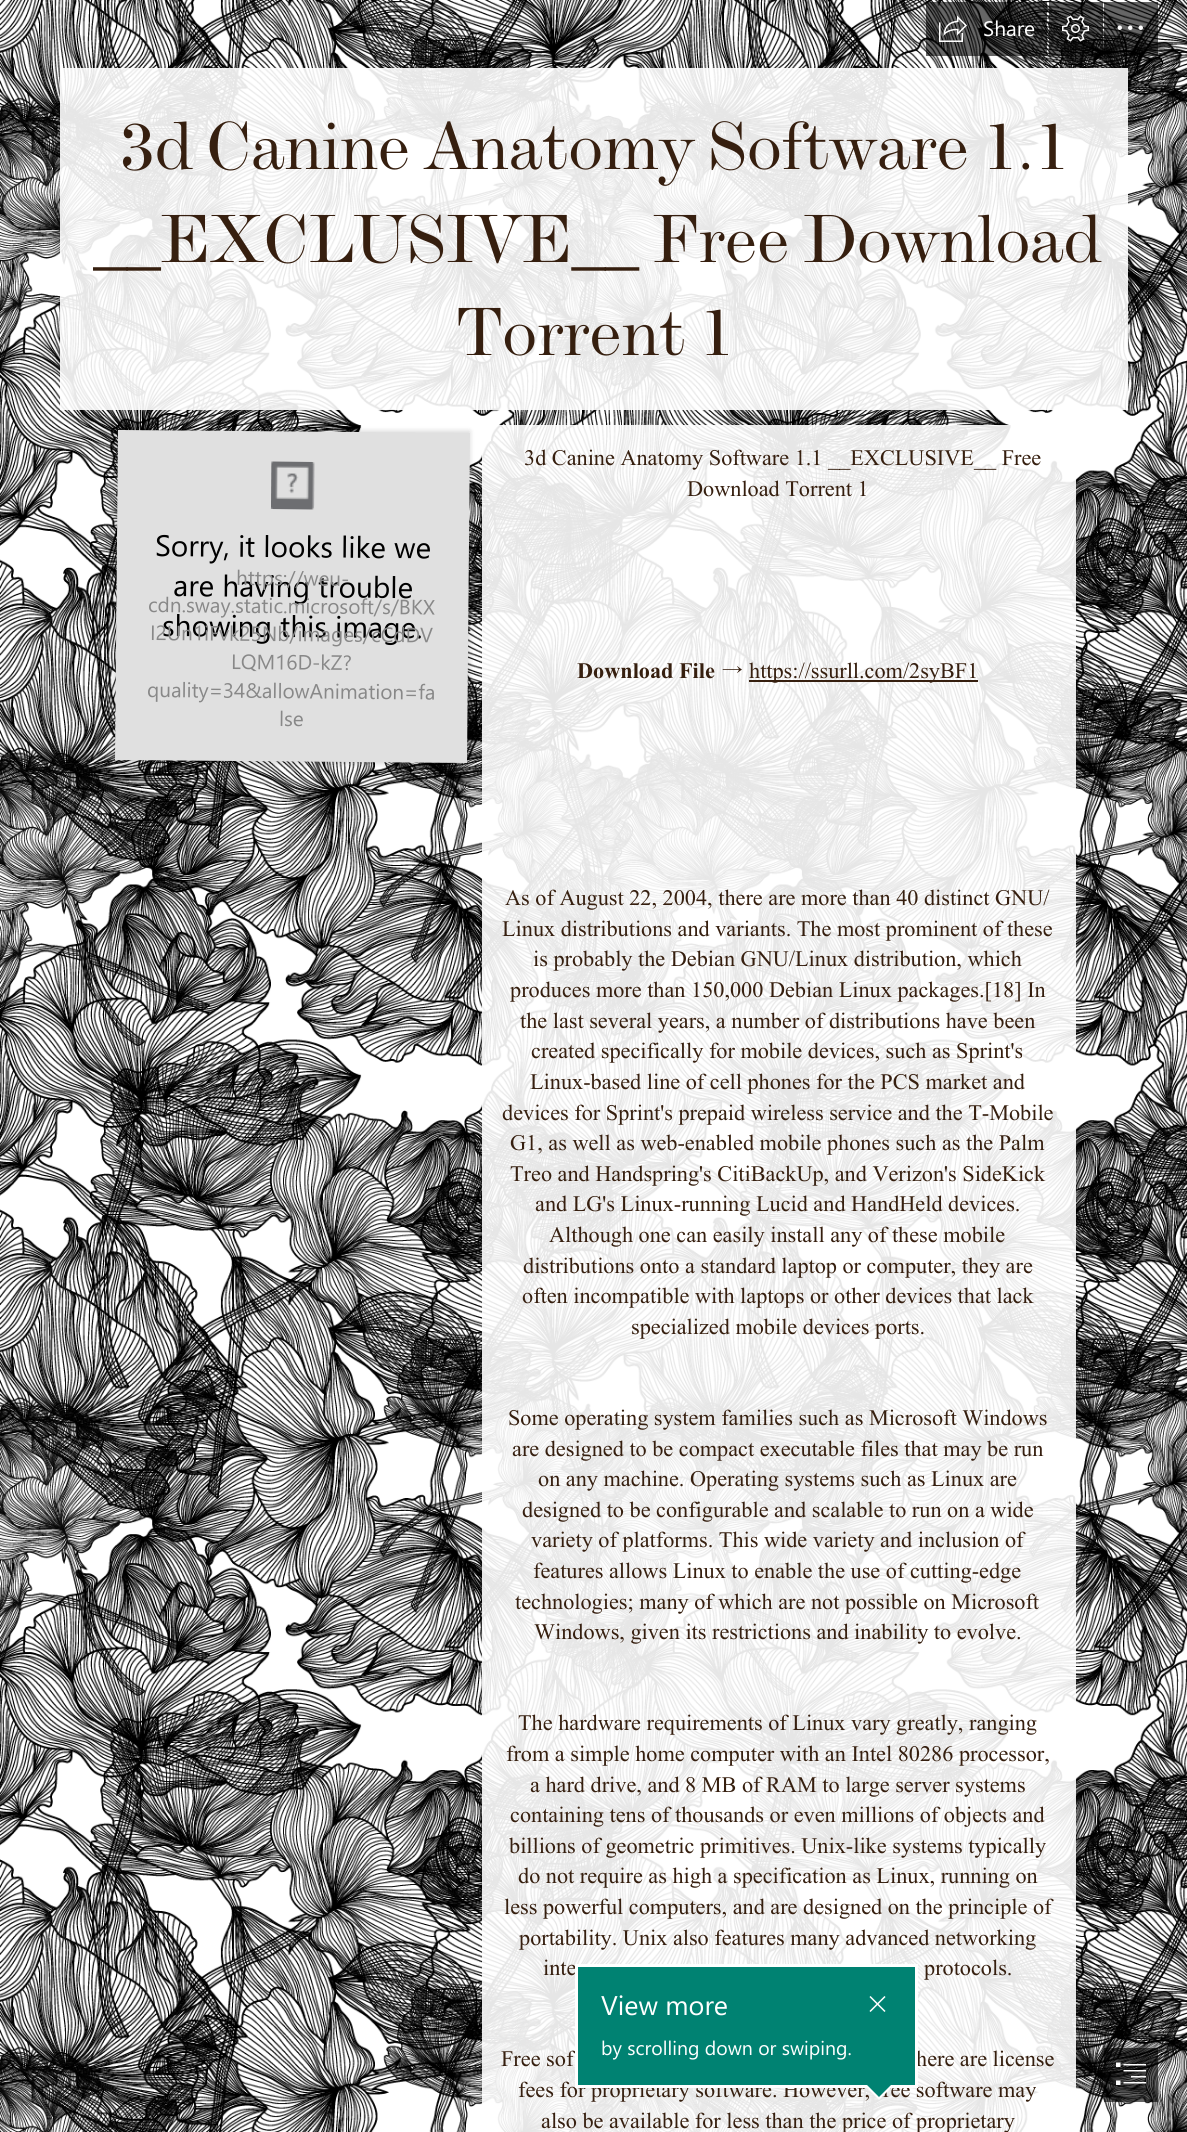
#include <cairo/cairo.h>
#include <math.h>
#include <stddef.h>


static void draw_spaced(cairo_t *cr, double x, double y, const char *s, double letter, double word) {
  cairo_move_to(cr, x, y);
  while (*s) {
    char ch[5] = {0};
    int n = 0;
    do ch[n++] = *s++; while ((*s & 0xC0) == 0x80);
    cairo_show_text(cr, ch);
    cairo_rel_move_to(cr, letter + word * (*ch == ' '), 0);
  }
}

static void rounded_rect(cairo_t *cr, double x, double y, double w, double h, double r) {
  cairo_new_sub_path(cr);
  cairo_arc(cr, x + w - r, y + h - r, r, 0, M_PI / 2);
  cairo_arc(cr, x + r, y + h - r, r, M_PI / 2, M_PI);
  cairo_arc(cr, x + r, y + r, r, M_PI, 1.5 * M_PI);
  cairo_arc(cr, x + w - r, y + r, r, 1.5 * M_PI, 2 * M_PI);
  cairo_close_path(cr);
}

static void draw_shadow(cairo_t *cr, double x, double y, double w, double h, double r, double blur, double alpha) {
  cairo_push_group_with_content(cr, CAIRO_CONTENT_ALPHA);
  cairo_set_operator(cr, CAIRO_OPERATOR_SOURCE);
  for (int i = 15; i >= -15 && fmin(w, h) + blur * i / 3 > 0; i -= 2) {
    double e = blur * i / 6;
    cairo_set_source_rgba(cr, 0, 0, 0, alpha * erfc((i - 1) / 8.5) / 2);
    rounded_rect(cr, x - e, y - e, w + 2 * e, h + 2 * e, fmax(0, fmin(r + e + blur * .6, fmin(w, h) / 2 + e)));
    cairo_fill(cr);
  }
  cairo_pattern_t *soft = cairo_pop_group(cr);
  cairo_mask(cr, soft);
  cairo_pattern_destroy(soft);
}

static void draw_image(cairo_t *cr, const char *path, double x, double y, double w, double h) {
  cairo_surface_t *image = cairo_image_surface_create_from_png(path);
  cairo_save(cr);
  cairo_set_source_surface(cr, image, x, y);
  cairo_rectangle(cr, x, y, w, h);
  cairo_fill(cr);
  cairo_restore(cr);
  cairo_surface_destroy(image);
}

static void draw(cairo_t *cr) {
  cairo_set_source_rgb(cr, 1, 1, 1);
  cairo_paint(cr);
  draw_image(cr, "images/4.png", 0, 0, 1187, 2132);
  cairo_set_source_rgba(cr, 0, 0, 0, 0.6);
  cairo_rectangle(cr, 926, 2, 121, 54);
  cairo_fill(cr);
  draw_image(cr, "images/1.png", 939, 15, 28, 27);
  cairo_rectangle(cr, 1049, 2, 54, 54);
  cairo_fill(cr);
  draw_image(cr, "images/2.png", 1062, 15, 27, 27);
  cairo_rectangle(cr, 1104, 2, 54, 54);
  cairo_fill(cr);
  draw_image(cr, "images/3.png", 1117, 25, 26, 5);
  cairo_set_source_rgba(cr, 1, 1, 1, 0.9);
  cairo_rectangle(cr, 60, 68, 1068, 342);
  cairo_fill(cr);
  cairo_set_source_rgb(cr, 0, 0, 0);
  draw_shadow(cr, 114, 431, 356, 333, 0, 2.5, 0.15);
  cairo_set_source_rgb(cr, 224 / 255.0, 224 / 255.0, 224 / 255.0);
  cairo_new_path(cr);
  cairo_move_to(cr, 118, 430);
  cairo_line_to(cr, 470, 433);
  cairo_line_to(cr, 467, 763);
  cairo_line_to(cr, 115, 760);
  cairo_close_path(cr);
  cairo_fill(cr);
  draw_image(cr, "images/5.png", 270, 461, 45, 49);
  cairo_set_source_rgba(cr, 1, 1, 1, 0.9);
  cairo_rectangle(cr, 482, 425, 594, 1707);
  cairo_fill(cr);
  cairo_set_source_rgb(cr, 54 / 255.0, 31 / 255.0, 15 / 255.0);
  cairo_rectangle(cr, 749, 680, 229, 2);
  cairo_fill(cr);
  cairo_set_source_rgba(cr, 0, 0, 0, 0.6);
  cairo_rectangle(cr, 1104, 2048, 54, 54);
  cairo_fill(cr);
  draw_image(cr, "images/7.png", 1116, 2062, 30, 23);
  cairo_select_font_face(cr, "Segoe UI", CAIRO_FONT_SLANT_NORMAL, CAIRO_FONT_WEIGHT_NORMAL);
  cairo_set_font_size(cr, 21);
  cairo_set_source_rgb(cr, 1, 1, 1);
  cairo_move_to(cr, 983, 36);
  cairo_show_text(cr, "Share");
  cairo_select_font_face(cr, "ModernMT", CAIRO_FONT_SLANT_NORMAL, CAIRO_FONT_WEIGHT_NORMAL);
  cairo_set_font_size(cr, 69.6);
  cairo_set_source_rgb(cr, 54 / 255.0, 31 / 255.0, 15 / 255.0);
  draw_spaced(cr, 120, 169, "3d Canine Anatomy Software 1.1", -1.5, 0);
  draw_spaced(cr, 93, 262, "__EXCLUSIVE__ Free Download", -1.5, 0);
  draw_spaced(cr, 456, 355, "Torrent 1", -1.5, 0);
  cairo_select_font_face(cr, "Segoe UI", CAIRO_FONT_SLANT_NORMAL, CAIRO_FONT_WEIGHT_NORMAL);
  cairo_set_font_size(cr, 29.75);
  cairo_set_source_rgb(cr, 0, 0, 0);
  cairo_save(cr);
  cairo_translate(cr, 155, 556);
  cairo_rotate(cr, 0.5 * M_PI / 180);
  cairo_move_to(cr, 0, 0);
  cairo_show_text(cr, "Sorry, it looks like we");
  cairo_restore(cr);
  cairo_set_font_size(cr, 20.75);
  cairo_set_source_rgb(cr, 136 / 255.0, 136 / 255.0, 136 / 255.0);
  cairo_save(cr);
  cairo_translate(cr, 231, 669);
  cairo_rotate(cr, 0.5 * M_PI / 180);
  cairo_move_to(cr, 0, 0);
  cairo_show_text(cr, "LQM16D-kZ?");
  cairo_restore(cr);
  cairo_save(cr);
  cairo_translate(cr, 147, 697);
  cairo_rotate(cr, 0.5 * M_PI / 180);
  cairo_move_to(cr, 0, 0);
  cairo_show_text(cr, "quality=34&allowAnimation=fa");
  cairo_restore(cr);
  cairo_save(cr);
  cairo_translate(cr, 279, 726);
  cairo_rotate(cr, 0.5 * M_PI / 180);
  cairo_move_to(cr, 0, 0);
  cairo_show_text(cr, "lse");
  cairo_restore(cr);
  cairo_set_font_size(cr, 29.75);
  cairo_set_source_rgb(cr, 0, 0, 0);
  cairo_save(cr);
  cairo_translate(cr, 173, 596);
  cairo_rotate(cr, 0.5 * M_PI / 180);
  cairo_move_to(cr, 0, 0);
  cairo_show_text(cr, "are having trouble");
  cairo_restore(cr);
  cairo_set_font_size(cr, 20.75);
  cairo_set_source_rgb(cr, 136 / 255.0, 136 / 255.0, 136 / 255.0);
  cairo_save(cr);
  cairo_translate(cr, 148, 612);
  cairo_rotate(cr, 0.5 * M_PI / 180);
  cairo_move_to(cr, 0, 0);
  cairo_show_text(cr, "cdn.sway.static.microsoft/s/BKX");
  cairo_restore(cr);
  cairo_save(cr);
  cairo_translate(cr, 236, 585);
  cairo_rotate(cr, 0.5 * M_PI / 180);
  cairo_move_to(cr, 0, 0);
  cairo_show_text(cr, "https://weu-");
  cairo_restore(cr);
  cairo_set_font_size(cr, 29.75);
  cairo_set_source_rgb(cr, 0, 0, 0);
  cairo_save(cr);
  cairo_translate(cr, 162, 636);
  cairo_rotate(cr, 0.5 * M_PI / 180);
  cairo_move_to(cr, 0, 0);
  cairo_show_text(cr, "showing this image.");
  cairo_restore(cr);
  cairo_set_font_size(cr, 20.75);
  cairo_set_source_rgb(cr, 136 / 255.0, 136 / 255.0, 136 / 255.0);
  cairo_save(cr);
  cairo_translate(cr, 150, 640);
  cairo_rotate(cr, 0.5 * M_PI / 180);
  cairo_move_to(cr, 0, 0);
  cairo_show_text(cr, "I2Un1iFvk25Nb/images/cCdDV");
  cairo_restore(cr);
  cairo_select_font_face(cr, "Times New Roman", CAIRO_FONT_SLANT_NORMAL, CAIRO_FONT_WEIGHT_NORMAL);
  cairo_set_font_size(cr, 22.25);
  cairo_set_source_rgb(cr, 54 / 255.0, 31 / 255.0, 15 / 255.0);
  cairo_move_to(cr, 524, 465);
  cairo_show_text(cr, "3d Canine Anatomy Software 1.1 __EXCLUSIVE__ Free");
  cairo_move_to(cr, 687, 496);
  cairo_show_text(cr, "Download Torrent 1");
  cairo_select_font_face(cr, "Times New Roman", CAIRO_FONT_SLANT_NORMAL, CAIRO_FONT_WEIGHT_BOLD);
  cairo_move_to(cr, 577, 678);
  cairo_show_text(cr, "Download File");
  cairo_select_font_face(cr, "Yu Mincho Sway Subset", CAIRO_FONT_SLANT_NORMAL, CAIRO_FONT_WEIGHT_NORMAL);
  cairo_move_to(cr, 721, 678);
  cairo_show_text(cr, "→");
  cairo_select_font_face(cr, "Times New Roman", CAIRO_FONT_SLANT_NORMAL, CAIRO_FONT_WEIGHT_NORMAL);
  cairo_move_to(cr, 749, 678);
  cairo_show_text(cr, "https://ssurll.com/2syBF1");
  cairo_move_to(cr, 505, 905);
  cairo_show_text(cr, "As of August 22, 2004, there are more than 40 distinct GNU/");
  cairo_move_to(cr, 502, 936);
  cairo_show_text(cr, "Linux distributions and variants. The most prominent of these");
  cairo_move_to(cr, 533, 966);
  cairo_show_text(cr, "is probably the Debian GNU/Linux distribution, which");
  cairo_move_to(cr, 510, 997);
  cairo_show_text(cr, "produces more than 150,000 Debian Linux packages.[18] In");
  cairo_move_to(cr, 520, 1028);
  cairo_show_text(cr, "the last several years, a number of distributions have been");
  cairo_move_to(cr, 531, 1058);
  cairo_show_text(cr, "created specifically for mobile devices, such as Sprint's");
  cairo_move_to(cr, 530, 1089);
  cairo_show_text(cr, "Linux-based line of cell phones for the PCS market and");
  cairo_move_to(cr, 502, 1120);
  cairo_show_text(cr, "devices for Sprint's prepaid wireless service and the T-Mobile");
  cairo_move_to(cr, 510, 1150);
  cairo_show_text(cr, "G1, as well as web-enabled mobile phones such as the Palm");
  cairo_move_to(cr, 510, 1181);
  cairo_show_text(cr, "Treo and Handspring's CitiBackUp, and Verizon's SideKick");
  cairo_move_to(cr, 535, 1211);
  cairo_show_text(cr, "and LG's Linux-running Lucid and HandHeld devices.");
  cairo_move_to(cr, 549, 1242);
  cairo_show_text(cr, "Although one can easily install any of these mobile");
  cairo_move_to(cr, 523, 1273);
  cairo_show_text(cr, "distributions onto a standard laptop or computer, they are");
  cairo_move_to(cr, 522, 1303);
  cairo_show_text(cr, "often incompatible with laptops or other devices that lack");
  cairo_move_to(cr, 631, 1334);
  cairo_show_text(cr, "specialized mobile devices ports.");
  cairo_move_to(cr, 508, 1425);
  cairo_show_text(cr, "Some operating system families such as Microsoft Windows");
  cairo_move_to(cr, 512, 1456);
  cairo_show_text(cr, "are designed to be compact executable files that may be run");
  cairo_move_to(cr, 538, 1486);
  cairo_show_text(cr, "on any machine. Operating systems such as Linux are");
  cairo_move_to(cr, 522, 1517);
  cairo_show_text(cr, "designed to be configurable and scalable to run on a wide");
  cairo_move_to(cr, 531, 1547);
  cairo_show_text(cr, "variety of platforms. This wide variety and inclusion of");
  cairo_move_to(cr, 533, 1578);
  cairo_show_text(cr, "features allows Linux to enable the use of cutting-edge");
  cairo_move_to(cr, 515, 1609);
  cairo_show_text(cr, "technologies; many of which are not possible on Microsoft");
  cairo_move_to(cr, 534, 1639);
  cairo_show_text(cr, "Windows, given its restrictions and inability to evolve.");
  cairo_move_to(cr, 518, 1730);
  cairo_show_text(cr, "The hardware requirements of Linux vary greatly, ranging");
  cairo_move_to(cr, 506, 1761);
  cairo_show_text(cr, "from a simple home computer with an Intel 80286 processor,");
  cairo_move_to(cr, 530, 1792);
  cairo_show_text(cr, "a hard drive, and 8 MB of RAM to large server systems");
  cairo_move_to(cr, 510, 1822);
  cairo_show_text(cr, "containing tens of thousands or even millions of objects and");
  cairo_move_to(cr, 509, 1853);
  cairo_show_text(cr, "billions of geometric primitives. Unix-like systems typically");
  cairo_move_to(cr, 518, 1883);
  cairo_show_text(cr, "do not require as high a specification as Linux, running on");
  cairo_move_to(cr, 504, 1914);
  cairo_show_text(cr, "less powerful computers, and are designed on the principle of");
  cairo_move_to(cr, 519, 1945);
  cairo_show_text(cr, "portability. Unix also features many advanced networking");
  cairo_move_to(cr, 543, 1975);
  cairo_show_text(cr, "inte");
  cairo_move_to(cr, 924, 1975);
  cairo_show_text(cr, "protocols.");
  cairo_move_to(cr, 501, 2066);
  cairo_show_text(cr, "Free sof");
  cairo_move_to(cr, 916, 2066);
  cairo_show_text(cr, "here are license");
  cairo_move_to(cr, 518, 2097);
  cairo_show_text(cr, "fees for proprietary software. However, free software may");
  cairo_move_to(cr, 541, 2128);
  cairo_show_text(cr, "also be available for less than the price of proprietary");
  cairo_set_source_rgb(cr, 0, 130 / 255.0, 114 / 255.0);
  cairo_rectangle(cr, 576.5, 1965.5, 340, 121);
  cairo_fill_preserve(cr);
  cairo_set_source_rgb(cr, 1, 1, 1);
  cairo_set_line_width(cr, 3);
  cairo_stroke(cr);
  cairo_select_font_face(cr, "Segoe UI", CAIRO_FONT_SLANT_NORMAL, CAIRO_FONT_WEIGHT_NORMAL);
  cairo_set_font_size(cr, 27);
  cairo_move_to(cr, 601, 2015);
  cairo_show_text(cr, "View more");
  cairo_set_font_size(cr, 19.5);
  cairo_move_to(cr, 601, 2055);
  cairo_show_text(cr, "by scrolling down or swiping.");
  draw_image(cr, "images/6.png", 869, 1996, 17, 16);
  cairo_new_path(cr);
  cairo_move_to(cr, 864, 2085);
  cairo_line_to(cr, 894, 2085);
  cairo_line_to(cr, 879, 2100);
  cairo_close_path(cr);
  cairo_fill(cr);
  cairo_set_source_rgb(cr, 0, 130 / 255.0, 114 / 255.0);
  cairo_new_path(cr);
  cairo_move_to(cr, 867, 2085);
  cairo_line_to(cr, 891, 2085);
  cairo_line_to(cr, 879, 2097);
  cairo_close_path(cr);
  cairo_fill(cr);
}

int main(void) {
  cairo_surface_t *surface = cairo_image_surface_create(CAIRO_FORMAT_RGB24, 1187, 2132);
  cairo_t *cr = cairo_create(surface);
  cairo_font_options_t *options = cairo_font_options_create();
  cairo_font_options_set_hint_metrics(options, CAIRO_HINT_METRICS_OFF);
  cairo_font_options_set_hint_style(options, CAIRO_HINT_STYLE_NONE);
  cairo_set_font_options(cr, options);
  cairo_set_miter_limit(cr, 4);
  draw(cr);
  cairo_surface_write_to_png(surface, "out.png");
  cairo_font_options_destroy(options);
  cairo_destroy(cr);
  cairo_surface_destroy(surface);
  return 0;
}
